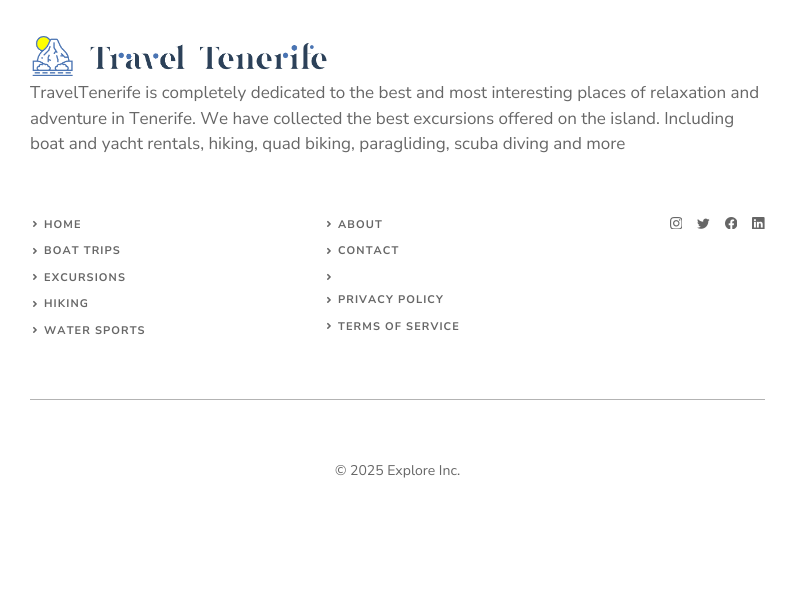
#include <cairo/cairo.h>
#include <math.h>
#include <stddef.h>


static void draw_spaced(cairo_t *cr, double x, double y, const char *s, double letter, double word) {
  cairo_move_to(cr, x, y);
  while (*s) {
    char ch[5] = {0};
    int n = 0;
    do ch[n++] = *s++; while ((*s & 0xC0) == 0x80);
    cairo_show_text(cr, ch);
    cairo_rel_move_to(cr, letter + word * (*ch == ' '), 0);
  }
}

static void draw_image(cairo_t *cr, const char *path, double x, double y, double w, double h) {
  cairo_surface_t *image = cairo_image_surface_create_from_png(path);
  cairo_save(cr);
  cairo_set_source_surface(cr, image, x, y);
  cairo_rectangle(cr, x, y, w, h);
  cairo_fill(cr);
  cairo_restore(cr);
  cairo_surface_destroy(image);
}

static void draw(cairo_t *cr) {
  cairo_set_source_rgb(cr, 1, 1, 1);
  cairo_paint(cr);
  draw_image(cr, "images/1.png", 32, 36, 295, 40);
  draw_image(cr, "images/2.png", 33, 220, 4, 7);
  draw_image(cr, "images/2.png", 33, 247, 4, 7);
  draw_image(cr, "images/2.png", 33, 273, 4, 7);
  draw_image(cr, "images/2.png", 33, 300, 4, 7);
  draw_image(cr, "images/2.png", 33, 326, 4, 7);
  draw_image(cr, "images/2.png", 327, 220, 4, 7);
  draw_image(cr, "images/2.png", 327, 247, 4, 7);
  draw_image(cr, "images/2.png", 327, 273, 4, 7);
  draw_image(cr, "images/2.png", 327, 296, 4, 7);
  draw_image(cr, "images/2.png", 327, 322, 4, 7);
  draw_image(cr, "images/3.png", 670, 217, 12, 12);
  draw_image(cr, "images/4.png", 697, 218, 13, 11);
  draw_image(cr, "images/5.png", 725, 217, 12, 12);
  draw_image(cr, "images/6.png", 752, 217, 13, 12);
  cairo_set_source_rgb(cr, 179 / 255.0, 179 / 255.0, 179 / 255.0);
  cairo_rectangle(cr, 30, 399, 735, 1);
  cairo_fill(cr);
  cairo_select_font_face(cr, "Nunito Sans", CAIRO_FONT_SLANT_NORMAL, CAIRO_FONT_WEIGHT_NORMAL);
  cairo_set_font_size(cr, 17);
  cairo_set_source_rgb(cr, 102 / 255.0, 102 / 255.0, 102 / 255.0);
  cairo_move_to(cr, 30, 98);
  cairo_show_text(cr, "TravelTenerife is completely dedicated to the best and most interesting places of relaxation and");
  cairo_move_to(cr, 30, 124);
  cairo_show_text(cr, "adventure in Tenerife. We have collected the best excursions offered on the island. Including");
  cairo_move_to(cr, 30, 149);
  cairo_show_text(cr, "boat and yacht rentals, hiking, quad biking, paragliding, scuba diving and more");
  cairo_select_font_face(cr, "Nunito Sans", CAIRO_FONT_SLANT_NORMAL, CAIRO_FONT_WEIGHT_BOLD);
  cairo_set_font_size(cr, 11);
  draw_spaced(cr, 44, 228, "HOME", 1.1, 0);
  draw_spaced(cr, 44, 254, "BOAT TRIPS", 1.1, 0);
  draw_spaced(cr, 44, 281, "EXCURSIONS", 1.1, 0);
  draw_spaced(cr, 44, 307, "HIKING", 1.1, 0);
  draw_spaced(cr, 44, 334, "WATER SPORTS", 1.1, 0);
  draw_spaced(cr, 338, 228, "ABOUT", 1.1, 0);
  draw_spaced(cr, 338, 254, "CONTACT", 1.1, 0);
  draw_spaced(cr, 338, 303, "PRIVACY POLICY", 1.1, 0);
  draw_spaced(cr, 338, 330, "TERMS OF SERVICE", 1.1, 0);
  cairo_select_font_face(cr, "Nunito Sans", CAIRO_FONT_SLANT_NORMAL, CAIRO_FONT_WEIGHT_NORMAL);
  cairo_set_font_size(cr, 14);
  cairo_move_to(cr, 335, 475);
  cairo_show_text(cr, "© 2025 Explore Inc.");
}

int main(void) {
  cairo_surface_t *surface = cairo_image_surface_create(CAIRO_FORMAT_RGB24, 795, 601);
  cairo_t *cr = cairo_create(surface);
  cairo_font_options_t *options = cairo_font_options_create();
  cairo_font_options_set_hint_metrics(options, CAIRO_HINT_METRICS_OFF);
  cairo_font_options_set_hint_style(options, CAIRO_HINT_STYLE_NONE);
  cairo_set_font_options(cr, options);
  cairo_set_miter_limit(cr, 4);
  draw(cr);
  cairo_surface_write_to_png(surface, "out.png");
  cairo_font_options_destroy(options);
  cairo_destroy(cr);
  cairo_surface_destroy(surface);
  return 0;
}
